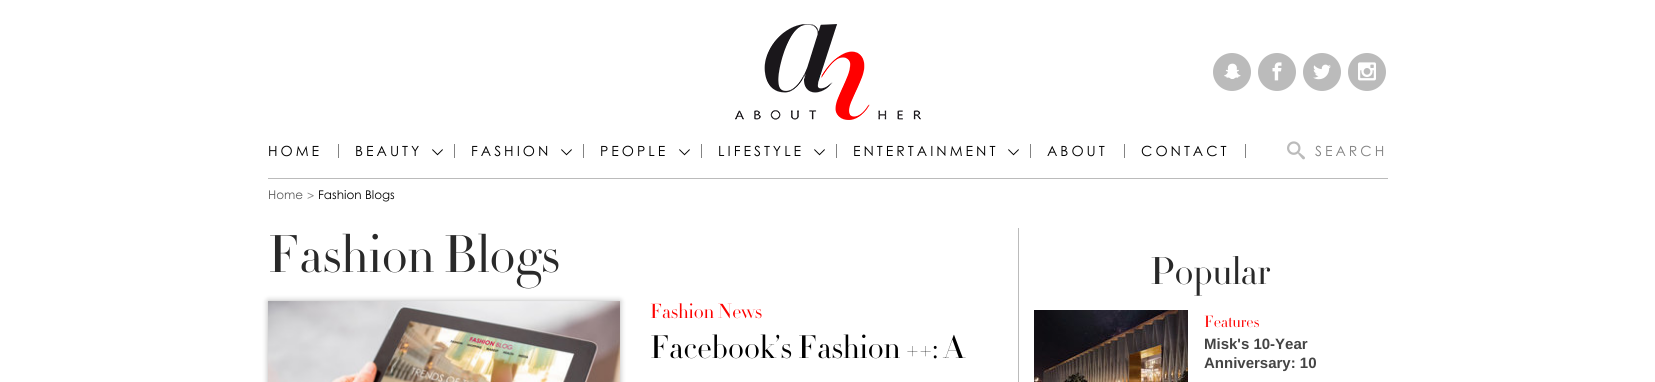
#include <cairo/cairo.h>
#include <math.h>
#include <stddef.h>


static void draw_spaced(cairo_t *cr, double x, double y, const char *s, double letter, double word) {
  cairo_move_to(cr, x, y);
  while (*s) {
    char ch[5] = {0};
    int n = 0;
    do ch[n++] = *s++; while ((*s & 0xC0) == 0x80);
    cairo_show_text(cr, ch);
    cairo_rel_move_to(cr, letter + word * (*ch == ' '), 0);
  }
}

static void rounded_rect(cairo_t *cr, double x, double y, double w, double h, double r) {
  cairo_new_sub_path(cr);
  cairo_arc(cr, x + w - r, y + h - r, r, 0, M_PI / 2);
  cairo_arc(cr, x + r, y + h - r, r, M_PI / 2, M_PI);
  cairo_arc(cr, x + r, y + r, r, M_PI, 1.5 * M_PI);
  cairo_arc(cr, x + w - r, y + r, r, 1.5 * M_PI, 2 * M_PI);
  cairo_close_path(cr);
}

static void draw_shadow(cairo_t *cr, double x, double y, double w, double h, double r, double blur, double alpha) {
  cairo_push_group_with_content(cr, CAIRO_CONTENT_ALPHA);
  cairo_set_operator(cr, CAIRO_OPERATOR_SOURCE);
  for (int i = 15; i >= -15 && fmin(w, h) + blur * i / 3 > 0; i -= 2) {
    double e = blur * i / 6;
    cairo_set_source_rgba(cr, 0, 0, 0, alpha * erfc((i - 1) / 8.5) / 2);
    rounded_rect(cr, x - e, y - e, w + 2 * e, h + 2 * e, fmax(0, fmin(r + e + blur * .6, fmin(w, h) / 2 + e)));
    cairo_fill(cr);
  }
  cairo_pattern_t *soft = cairo_pop_group(cr);
  cairo_mask(cr, soft);
  cairo_pattern_destroy(soft);
}

static void draw_image(cairo_t *cr, const char *path, double x, double y, double w, double h) {
  cairo_surface_t *image = cairo_image_surface_create_from_png(path);
  cairo_save(cr);
  cairo_set_source_surface(cr, image, x, y);
  cairo_rectangle(cr, x, y, w, h);
  cairo_fill(cr);
  cairo_restore(cr);
  cairo_surface_destroy(image);
}

static void draw(cairo_t *cr) {
  cairo_set_source_rgb(cr, 1, 1, 1);
  cairo_paint(cr);
  draw_image(cr, "images/1.png", 735, 24, 186, 96);
  cairo_set_source_rgb(cr, 187 / 255.0, 187 / 255.0, 187 / 255.0);
  cairo_arc(cr, 1232, 72, 19, 0, 2 * M_PI);
  cairo_fill(cr);
  draw_image(cr, "images/2.png", 1224, 63, 17, 16);
  cairo_arc(cr, 1277, 72, 19, 0, 2 * M_PI);
  cairo_fill(cr);
  draw_image(cr, "images/3.png", 1272, 62, 10, 19);
  cairo_arc(cr, 1322, 72, 19, 0, 2 * M_PI);
  cairo_fill(cr);
  draw_image(cr, "images/4.png", 1313, 64, 18, 16);
  cairo_arc(cr, 1367, 72, 19, 0, 2 * M_PI);
  cairo_fill(cr);
  draw_image(cr, "images/5.png", 1358, 62, 18, 19);
  cairo_rectangle(cr, 268, 178, 1120, 1);
  cairo_fill(cr);
  cairo_set_source_rgb(cr, 131 / 255.0, 131 / 255.0, 131 / 255.0);
  cairo_rectangle(cr, 338, 144, 1, 14);
  cairo_fill(cr);
  cairo_rectangle(cr, 454, 144, 1, 14);
  cairo_fill(cr);
  draw_image(cr, "images/6.png", 432, 149, 11, 7);
  cairo_rectangle(cr, 583, 144, 1, 14);
  cairo_fill(cr);
  draw_image(cr, "images/6.png", 561, 149, 11, 7);
  cairo_rectangle(cr, 701, 144, 1, 14);
  cairo_fill(cr);
  draw_image(cr, "images/6.png", 679, 149, 11, 7);
  cairo_rectangle(cr, 836, 144, 1, 14);
  cairo_fill(cr);
  draw_image(cr, "images/6.png", 814, 149, 11, 7);
  cairo_rectangle(cr, 1030, 144, 1, 14);
  cairo_fill(cr);
  draw_image(cr, "images/6.png", 1008, 149, 11, 7);
  cairo_rectangle(cr, 1124, 144, 1, 14);
  cairo_fill(cr);
  cairo_rectangle(cr, 1245, 144, 1, 14);
  cairo_fill(cr);
  draw_image(cr, "images/7.png", 1287, 141, 18, 19);
  cairo_set_source_rgb(cr, 187 / 255.0, 187 / 255.0, 187 / 255.0);
  cairo_rectangle(cr, 1018, 228, 1, 154);
  cairo_fill(cr);
  cairo_set_source_rgb(cr, 0, 0, 0);
  draw_shadow(cr, 268, 301, 352, 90, 0, 3, 0.3);
  draw_image(cr, "images/8.png", 268, 301, 352, 81);
  draw_image(cr, "images/9.png", 1034, 310, 154, 72);
  cairo_select_font_face(cr, "Century Gothic", CAIRO_FONT_SLANT_NORMAL, CAIRO_FONT_WEIGHT_NORMAL);
  cairo_set_font_size(cr, 14);
  cairo_set_source_rgb(cr, 0, 0, 0);
  draw_spaced(cr, 268, 156, "HOME", 3, 0);
  draw_spaced(cr, 355, 156, "BEAUTY", 3, 0);
  draw_spaced(cr, 471, 156, "FASHION", 3, 0);
  draw_spaced(cr, 600, 156, "PEOPLE", 3, 0);
  draw_spaced(cr, 718, 156, "LIFESTYLE", 3, 0);
  draw_spaced(cr, 853, 156, "ENTERTAINMENT", 3, 0);
  draw_spaced(cr, 1047, 156, "ABOUT", 3, 0);
  draw_spaced(cr, 1141, 156, "CONTACT", 3, 0);
  cairo_set_source_rgb(cr, 131 / 255.0, 131 / 255.0, 131 / 255.0);
  draw_spaced(cr, 1315, 156, "SEARCH", 3, 0);
  cairo_set_font_size(cr, 12);
  cairo_set_source_rgb(cr, 93 / 255.0, 93 / 255.0, 93 / 255.0);
  cairo_move_to(cr, 268, 199);
  cairo_show_text(cr, "Home");
  cairo_set_source_rgb(cr, 131 / 255.0, 131 / 255.0, 131 / 255.0);
  cairo_move_to(cr, 307, 200);
  cairo_show_text(cr, ">");
  cairo_set_source_rgb(cr, 0, 0, 0);
  cairo_move_to(cr, 318, 199);
  cairo_show_text(cr, "Fashion Blogs");
  cairo_select_font_face(cr, "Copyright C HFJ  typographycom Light", CAIRO_FONT_SLANT_NORMAL, CAIRO_FONT_WEIGHT_NORMAL);
  cairo_set_font_size(cr, 52);
  cairo_set_source_rgb(cr, 41 / 255.0, 41 / 255.0, 41 / 255.0);
  cairo_move_to(cr, 268, 272);
  cairo_show_text(cr, "Fashion Blogs");
  cairo_set_font_size(cr, 20);
  cairo_set_source_rgb(cr, 253 / 255.0, 1 / 255.0, 0);
  cairo_move_to(cr, 650, 318);
  cairo_show_text(cr, "Fashion News");
  cairo_set_font_size(cr, 32);
  cairo_set_source_rgb(cr, 0, 0, 0);
  cairo_move_to(cr, 650, 358);
  cairo_show_text(cr, "Facebook’s Fashion ++: A");
  cairo_set_font_size(cr, 38);
  cairo_set_source_rgb(cr, 41 / 255.0, 41 / 255.0, 41 / 255.0);
  cairo_move_to(cr, 1150, 284);
  cairo_show_text(cr, "Popular");
  cairo_set_font_size(cr, 16);
  cairo_set_source_rgb(cr, 253 / 255.0, 1 / 255.0, 0);
  cairo_move_to(cr, 1204, 327);
  cairo_show_text(cr, "Features");
  cairo_select_font_face(cr, "Liberation Sans", CAIRO_FONT_SLANT_NORMAL, CAIRO_FONT_WEIGHT_BOLD);
  cairo_set_font_size(cr, 15);
  cairo_set_source_rgb(cr, 68 / 255.0, 68 / 255.0, 68 / 255.0);
  cairo_move_to(cr, 1204, 349);
  cairo_show_text(cr, "Misk's 10-Year");
  cairo_move_to(cr, 1204, 368);
  cairo_show_text(cr, "Anniversary: 10");
}

int main(void) {
  cairo_surface_t *surface = cairo_image_surface_create(CAIRO_FORMAT_RGB24, 1655, 382);
  cairo_t *cr = cairo_create(surface);
  cairo_font_options_t *options = cairo_font_options_create();
  cairo_font_options_set_hint_metrics(options, CAIRO_HINT_METRICS_OFF);
  cairo_font_options_set_hint_style(options, CAIRO_HINT_STYLE_NONE);
  cairo_set_font_options(cr, options);
  cairo_set_miter_limit(cr, 4);
  draw(cr);
  cairo_surface_write_to_png(surface, "out.png");
  cairo_font_options_destroy(options);
  cairo_destroy(cr);
  cairo_surface_destroy(surface);
  return 0;
}
